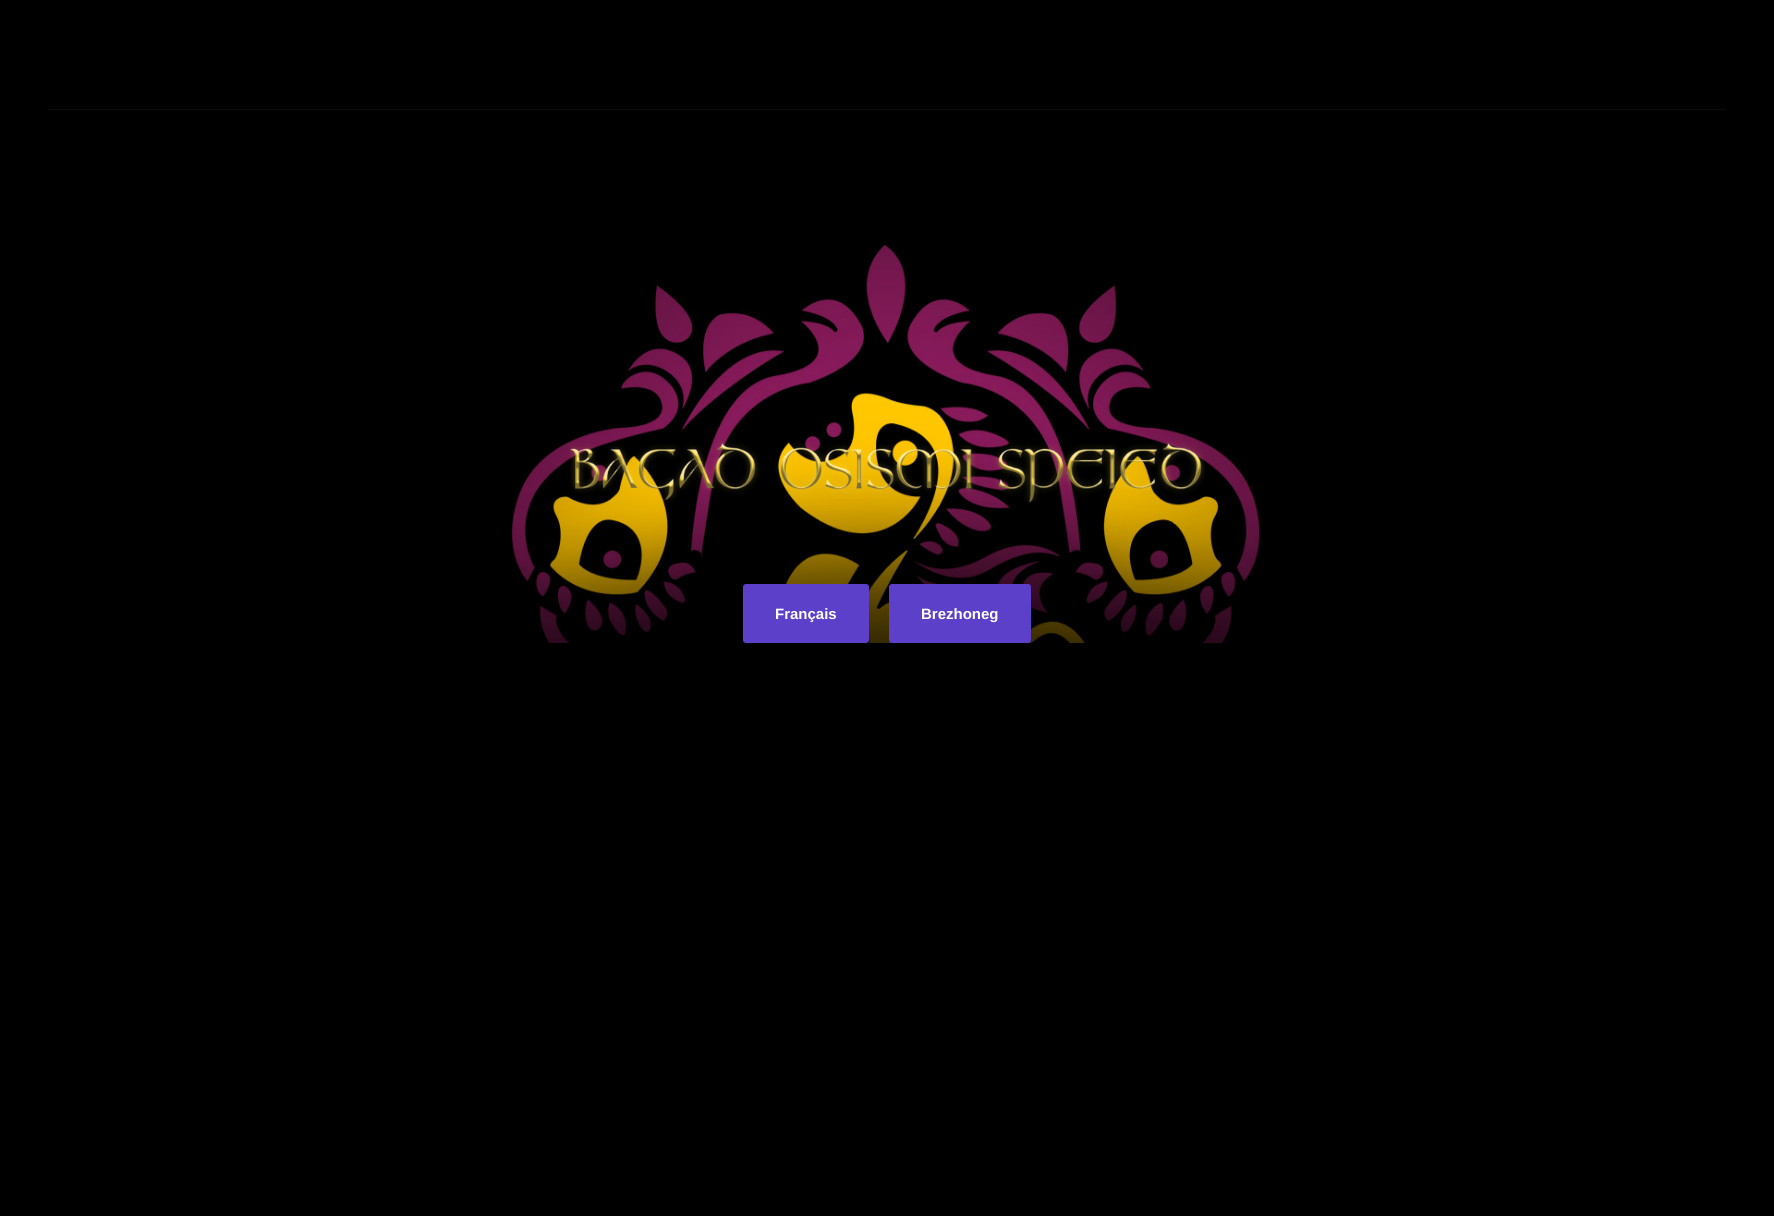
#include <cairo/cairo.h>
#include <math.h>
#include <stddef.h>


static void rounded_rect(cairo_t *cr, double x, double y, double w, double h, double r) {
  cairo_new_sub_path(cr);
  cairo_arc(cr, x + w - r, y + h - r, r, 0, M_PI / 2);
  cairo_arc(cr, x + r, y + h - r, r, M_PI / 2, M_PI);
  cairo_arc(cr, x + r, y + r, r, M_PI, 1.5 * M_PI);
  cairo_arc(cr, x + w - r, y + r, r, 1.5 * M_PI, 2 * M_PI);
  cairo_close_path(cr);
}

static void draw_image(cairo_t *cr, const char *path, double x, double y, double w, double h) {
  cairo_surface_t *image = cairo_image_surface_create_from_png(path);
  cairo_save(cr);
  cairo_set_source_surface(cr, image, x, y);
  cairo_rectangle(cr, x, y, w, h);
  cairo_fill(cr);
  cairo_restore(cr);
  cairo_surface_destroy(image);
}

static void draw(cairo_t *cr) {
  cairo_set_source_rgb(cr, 0, 0, 0);
  cairo_paint(cr);
  draw_image(cr, "images/1.png", 48, 109, 1678, 534);
  draw_image(cr, "images/2.png", 569, 441, 636, 62);
  cairo_set_source_rgb(cr, 92 / 255.0, 64 / 255.0, 202 / 255.0);
  rounded_rect(cr, 743, 584, 126, 59, 3);
  cairo_fill(cr);
  rounded_rect(cr, 889, 584, 142, 59, 3);
  cairo_fill(cr);
  cairo_select_font_face(cr, "Liberation Sans", CAIRO_FONT_SLANT_NORMAL, CAIRO_FONT_WEIGHT_BOLD);
  cairo_set_font_size(cr, 15);
  cairo_set_source_rgb(cr, 1, 1, 1);
  cairo_move_to(cr, 775, 619);
  cairo_show_text(cr, "Français");
  cairo_move_to(cr, 921, 619);
  cairo_show_text(cr, "Brezhoneg");
}

int main(void) {
  cairo_surface_t *surface = cairo_image_surface_create(CAIRO_FORMAT_RGB24, 1774, 1216);
  cairo_t *cr = cairo_create(surface);
  cairo_font_options_t *options = cairo_font_options_create();
  cairo_font_options_set_hint_metrics(options, CAIRO_HINT_METRICS_OFF);
  cairo_font_options_set_hint_style(options, CAIRO_HINT_STYLE_NONE);
  cairo_set_font_options(cr, options);
  cairo_set_miter_limit(cr, 4);
  draw(cr);
  cairo_surface_write_to_png(surface, "out.png");
  cairo_font_options_destroy(options);
  cairo_destroy(cr);
  cairo_surface_destroy(surface);
  return 0;
}
